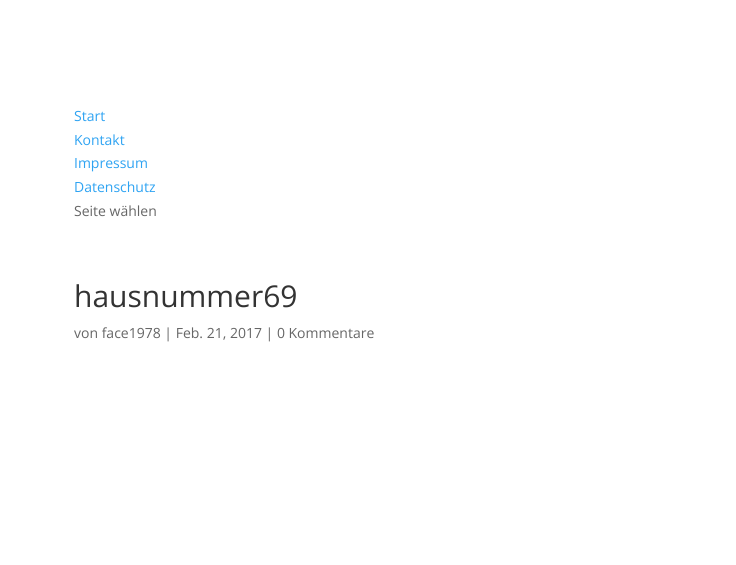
#include <cairo/cairo.h>
#include <math.h>
#include <stddef.h>


static void draw(cairo_t *cr) {
  cairo_set_source_rgb(cr, 1, 1, 1);
  cairo_paint(cr);
  cairo_select_font_face(cr, "Open Sans", CAIRO_FONT_SLANT_NORMAL, CAIRO_FONT_WEIGHT_NORMAL);
  cairo_set_font_size(cr, 14);
  cairo_set_source_rgb(cr, 46 / 255.0, 163 / 255.0, 242 / 255.0);
  cairo_move_to(cr, 74, 121);
  cairo_show_text(cr, "Start");
  cairo_move_to(cr, 74, 145);
  cairo_show_text(cr, "Kontakt");
  cairo_move_to(cr, 74, 168);
  cairo_show_text(cr, "Impressum");
  cairo_move_to(cr, 74, 192);
  cairo_show_text(cr, "Datenschutz");
  cairo_set_source_rgb(cr, 102 / 255.0, 102 / 255.0, 102 / 255.0);
  cairo_move_to(cr, 74, 216);
  cairo_show_text(cr, "Seite wählen");
  cairo_set_font_size(cr, 30);
  cairo_set_source_rgb(cr, 51 / 255.0, 51 / 255.0, 51 / 255.0);
  cairo_move_to(cr, 74, 307);
  cairo_show_text(cr, "hausnummer69");
  cairo_set_font_size(cr, 14);
  cairo_set_source_rgb(cr, 102 / 255.0, 102 / 255.0, 102 / 255.0);
  cairo_move_to(cr, 74, 338);
  cairo_show_text(cr, "von face1978 | Feb. 21, 2017 | 0 Kommentare");
}

int main(void) {
  cairo_surface_t *surface = cairo_image_surface_create(CAIRO_FORMAT_RGB24, 736, 565);
  cairo_t *cr = cairo_create(surface);
  cairo_font_options_t *options = cairo_font_options_create();
  cairo_font_options_set_hint_metrics(options, CAIRO_HINT_METRICS_OFF);
  cairo_font_options_set_hint_style(options, CAIRO_HINT_STYLE_NONE);
  cairo_set_font_options(cr, options);
  cairo_set_miter_limit(cr, 4);
  draw(cr);
  cairo_surface_write_to_png(surface, "out.png");
  cairo_font_options_destroy(options);
  cairo_destroy(cr);
  cairo_surface_destroy(surface);
  return 0;
}
